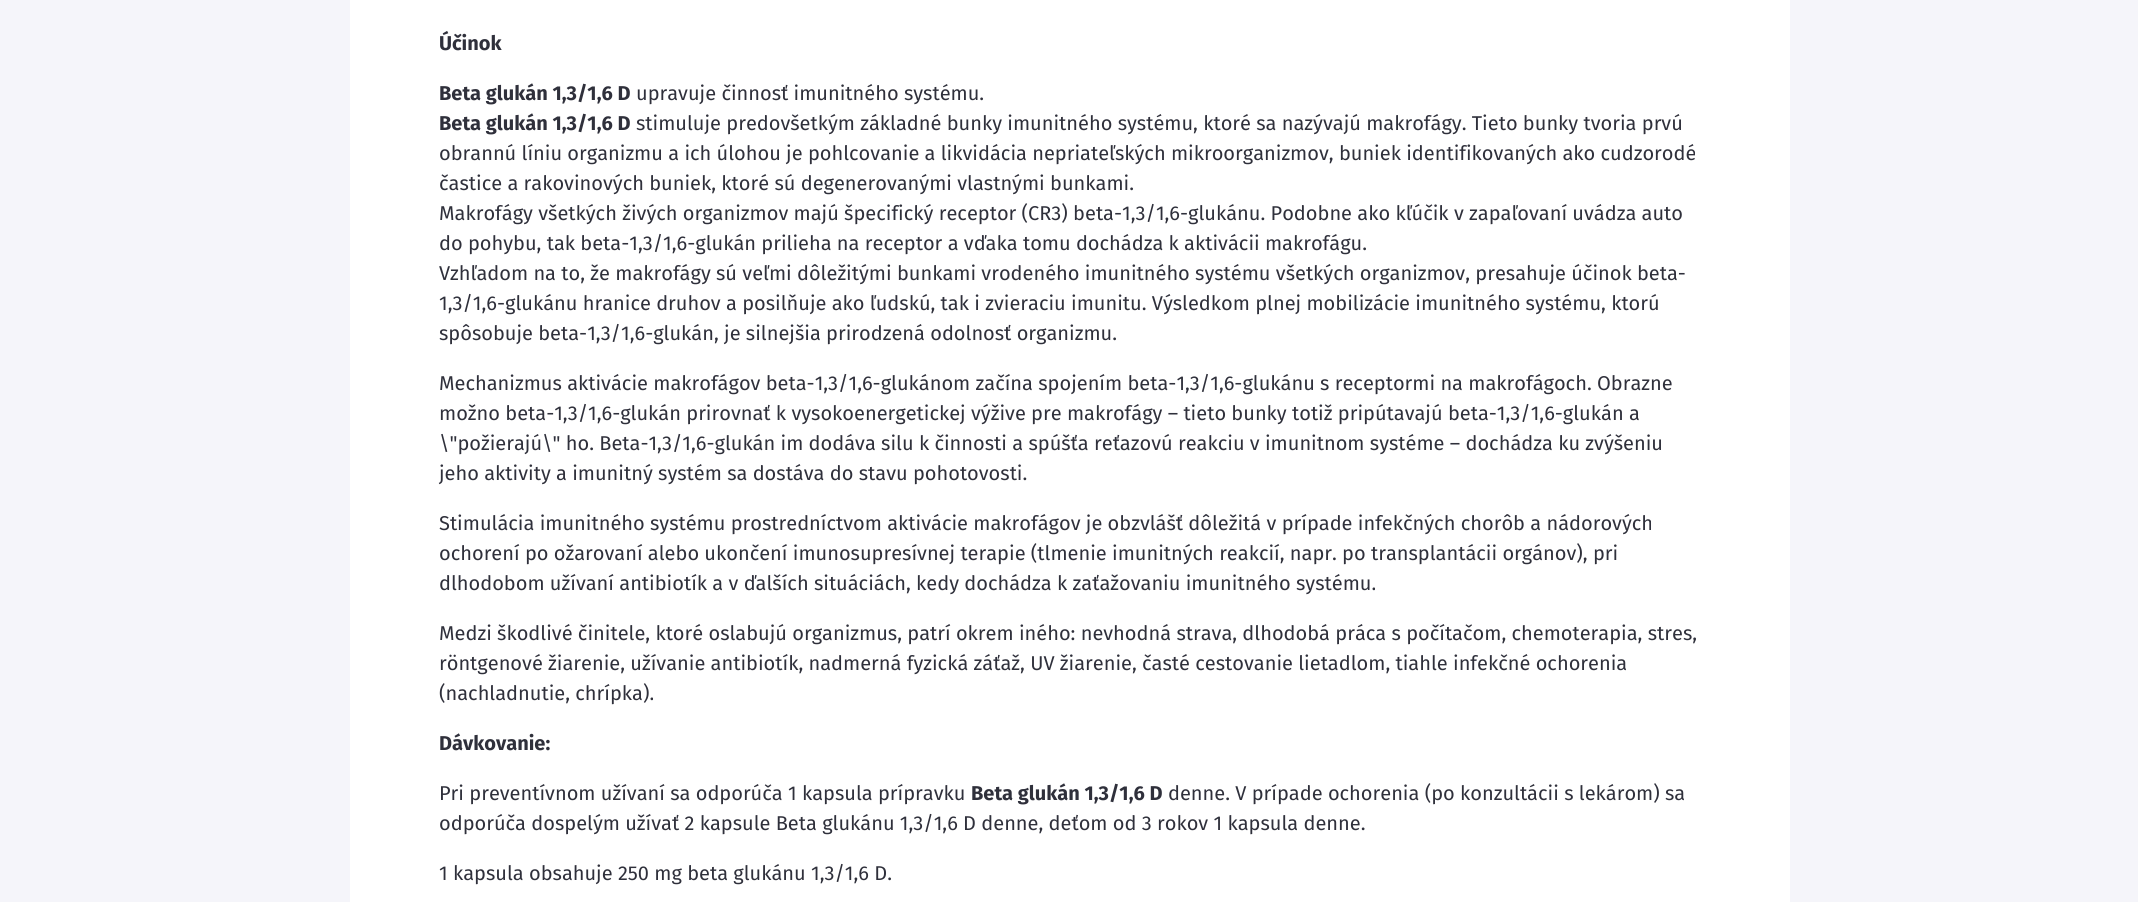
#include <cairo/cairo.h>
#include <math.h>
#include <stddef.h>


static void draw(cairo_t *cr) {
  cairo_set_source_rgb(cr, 245 / 255.0, 245 / 255.0, 250 / 255.0);
  cairo_paint(cr);
  cairo_set_source_rgb(cr, 1, 1, 1);
  cairo_rectangle(cr, 350, 0, 1440, 902);
  cairo_fill(cr);
  cairo_select_font_face(cr, "Fira Sans", CAIRO_FONT_SLANT_NORMAL, CAIRO_FONT_WEIGHT_BOLD);
  cairo_set_font_size(cr, 20);
  cairo_set_source_rgb(cr, 47 / 255.0, 48 / 255.0, 59 / 255.0);
  cairo_move_to(cr, 439, 50);
  cairo_show_text(cr, "Účinok");
  cairo_move_to(cr, 439, 100);
  cairo_show_text(cr, "Beta glukán 1,3/1,6 D");
  cairo_select_font_face(cr, "Fira Sans", CAIRO_FONT_SLANT_NORMAL, CAIRO_FONT_WEIGHT_NORMAL);
  cairo_move_to(cr, 636, 100);
  cairo_show_text(cr, "upravuje činnosť imunitného systému.");
  cairo_select_font_face(cr, "Fira Sans", CAIRO_FONT_SLANT_NORMAL, CAIRO_FONT_WEIGHT_BOLD);
  cairo_move_to(cr, 439, 130);
  cairo_show_text(cr, "Beta glukán 1,3/1,6 D");
  cairo_select_font_face(cr, "Fira Sans", CAIRO_FONT_SLANT_NORMAL, CAIRO_FONT_WEIGHT_NORMAL);
  cairo_move_to(cr, 636, 130);
  cairo_show_text(cr, "stimuluje predovšetkým základné bunky imunitného systému, ktoré sa nazývajú makrofágy. Tieto bunky tvoria prvú");
  cairo_move_to(cr, 439, 160);
  cairo_show_text(cr, "obrannú líniu organizmu a ich úlohou je pohlcovanie a likvidácia nepriateľských mikroorganizmov, buniek identifikovaných ako cudzorodé");
  cairo_move_to(cr, 439, 190);
  cairo_show_text(cr, "častice a rakovinových buniek, ktoré sú degenerovanými vlastnými bunkami.");
  cairo_move_to(cr, 439, 220);
  cairo_show_text(cr, "Makrofágy všetkých živých organizmov majú špecifický receptor (CR3) beta-1,3/1,6-glukánu. Podobne ako kľúčik v zapaľovaní uvádza auto");
  cairo_move_to(cr, 439, 250);
  cairo_show_text(cr, "do pohybu, tak beta-1,3/1,6-glukán prilieha na receptor a vďaka tomu dochádza k aktivácii makrofágu.");
  cairo_move_to(cr, 439, 280);
  cairo_show_text(cr, "Vzhľadom na to, že makrofágy sú veľmi dôležitými bunkami vrodeného imunitného systému všetkých organizmov, presahuje účinok beta-");
  cairo_move_to(cr, 439, 310);
  cairo_show_text(cr, "1,3/1,6-glukánu hranice druhov a posilňuje ako ľudskú, tak i zvieraciu imunitu. Výsledkom plnej mobilizácie imunitného systému, ktorú");
  cairo_move_to(cr, 439, 340);
  cairo_show_text(cr, "spôsobuje beta-1,3/1,6-glukán, je silnejšia prirodzená odolnosť organizmu.");
  cairo_move_to(cr, 439, 390);
  cairo_show_text(cr, "Mechanizmus aktivácie makrofágov beta-1,3/1,6-glukánom začína spojením beta-1,3/1,6-glukánu s receptormi na makrofágoch. Obrazne");
  cairo_move_to(cr, 439, 420);
  cairo_show_text(cr, "možno beta-1,3/1,6-glukán prirovnať k vysokoenergetickej výžive pre makrofágy – tieto bunky totiž pripútavajú beta-1,3/1,6-glukán a");
  cairo_move_to(cr, 439, 450);
  cairo_show_text(cr, "\\\"požierajú\\\" ho. Beta-1,3/1,6-glukán im dodáva silu k činnosti a spúšťa reťazovú reakciu v imunitnom systéme – dochádza ku zvýšeniu");
  cairo_move_to(cr, 439, 480);
  cairo_show_text(cr, "jeho aktivity a imunitný systém sa dostáva do stavu pohotovosti.");
  cairo_move_to(cr, 439, 530);
  cairo_show_text(cr, "Stimulácia imunitného systému prostredníctvom aktivácie makrofágov je obzvlášť dôležitá v prípade infekčných chorôb a nádorových");
  cairo_move_to(cr, 439, 560);
  cairo_show_text(cr, "ochorení po ožarovaní alebo ukončení imunosupresívnej terapie (tlmenie imunitných reakcií, napr. po transplantácii orgánov), pri");
  cairo_move_to(cr, 439, 590);
  cairo_show_text(cr, "dlhodobom užívaní antibiotík a v ďalších situáciách, kedy dochádza k zaťažovaniu imunitného systému.");
  cairo_move_to(cr, 439, 640);
  cairo_show_text(cr, "Medzi škodlivé činitele, ktoré oslabujú organizmus, patrí okrem iného: nevhodná strava, dlhodobá práca s počítačom, chemoterapia, stres,");
  cairo_move_to(cr, 439, 670);
  cairo_show_text(cr, "röntgenové žiarenie, užívanie antibiotík, nadmerná fyzická záťaž, UV žiarenie, časté cestovanie lietadlom, tiahle infekčné ochorenia");
  cairo_move_to(cr, 439, 700);
  cairo_show_text(cr, "(nachladnutie, chrípka).");
  cairo_select_font_face(cr, "Fira Sans", CAIRO_FONT_SLANT_NORMAL, CAIRO_FONT_WEIGHT_BOLD);
  cairo_move_to(cr, 439, 750);
  cairo_show_text(cr, "Dávkovanie:");
  cairo_select_font_face(cr, "Fira Sans", CAIRO_FONT_SLANT_NORMAL, CAIRO_FONT_WEIGHT_NORMAL);
  cairo_move_to(cr, 439, 800);
  cairo_show_text(cr, "Pri preventívnom užívaní sa odporúča 1 kapsula prípravku");
  cairo_select_font_face(cr, "Fira Sans", CAIRO_FONT_SLANT_NORMAL, CAIRO_FONT_WEIGHT_BOLD);
  cairo_move_to(cr, 971, 800);
  cairo_show_text(cr, "Beta glukán 1,3/1,6 D");
  cairo_select_font_face(cr, "Fira Sans", CAIRO_FONT_SLANT_NORMAL, CAIRO_FONT_WEIGHT_NORMAL);
  cairo_move_to(cr, 1168, 800);
  cairo_show_text(cr, "denne. V prípade ochorenia (po konzultácii s lekárom) sa");
  cairo_move_to(cr, 439, 830);
  cairo_show_text(cr, "odporúča dospelým užívať 2 kapsule Beta glukánu 1,3/1,6 D denne, deťom od 3 rokov 1 kapsula denne.");
  cairo_move_to(cr, 439, 880);
  cairo_show_text(cr, "1 kapsula obsahuje 250 mg beta glukánu 1,3/1,6 D.");
}

int main(void) {
  cairo_surface_t *surface = cairo_image_surface_create(CAIRO_FORMAT_RGB24, 2138, 902);
  cairo_t *cr = cairo_create(surface);
  cairo_font_options_t *options = cairo_font_options_create();
  cairo_font_options_set_hint_metrics(options, CAIRO_HINT_METRICS_OFF);
  cairo_font_options_set_hint_style(options, CAIRO_HINT_STYLE_NONE);
  cairo_set_font_options(cr, options);
  cairo_set_miter_limit(cr, 4);
  draw(cr);
  cairo_surface_write_to_png(surface, "out.png");
  cairo_font_options_destroy(options);
  cairo_destroy(cr);
  cairo_surface_destroy(surface);
  return 0;
}
